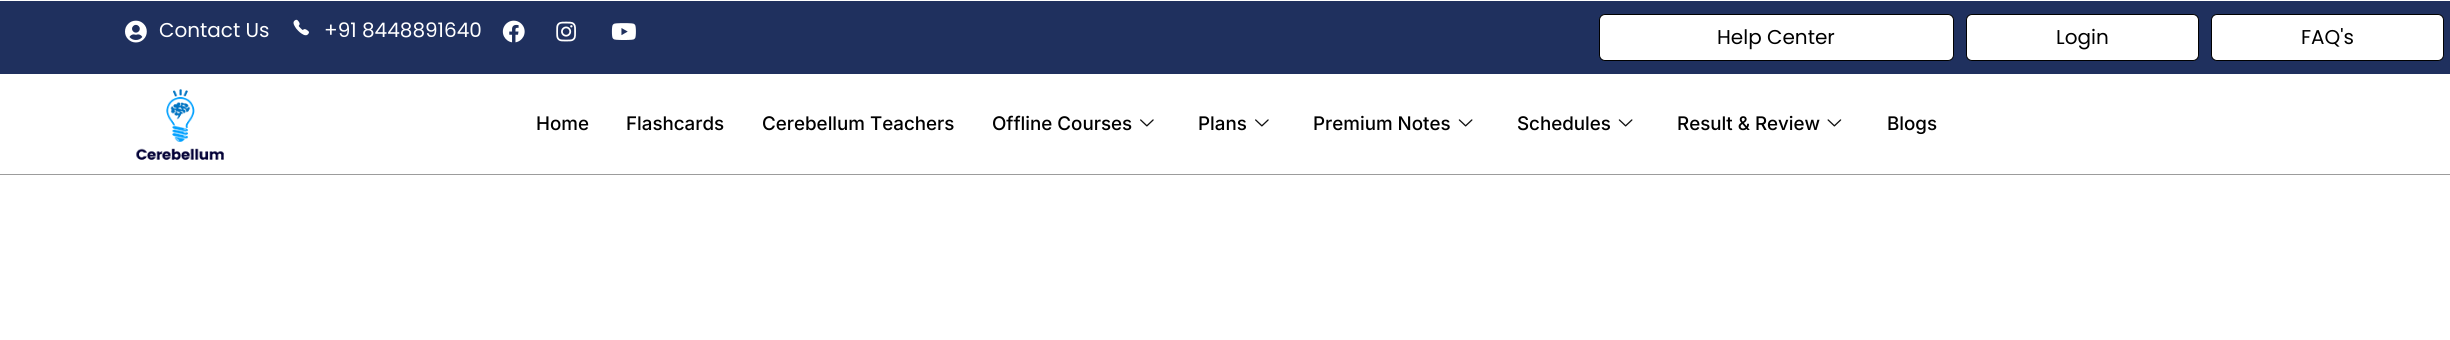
#include <cairo/cairo.h>
#include <math.h>
#include <stddef.h>


static void rounded_rect(cairo_t *cr, double x, double y, double w, double h, double r) {
  cairo_new_sub_path(cr);
  cairo_arc(cr, x + w - r, y + h - r, r, 0, M_PI / 2);
  cairo_arc(cr, x + r, y + h - r, r, M_PI / 2, M_PI);
  cairo_arc(cr, x + r, y + r, r, M_PI, 1.5 * M_PI);
  cairo_arc(cr, x + w - r, y + r, r, 1.5 * M_PI, 2 * M_PI);
  cairo_close_path(cr);
}

static void draw_image(cairo_t *cr, const char *path, double x, double y, double w, double h) {
  cairo_surface_t *image = cairo_image_surface_create_from_png(path);
  cairo_save(cr);
  cairo_set_source_surface(cr, image, x, y);
  cairo_rectangle(cr, x, y, w, h);
  cairo_fill(cr);
  cairo_restore(cr);
  cairo_surface_destroy(image);
}

static void draw(cairo_t *cr) {
  cairo_set_source_rgb(cr, 1, 1, 1);
  cairo_paint(cr);
  cairo_set_source_rgb(cr, 31 / 255.0, 48 / 255.0, 94 / 255.0);
  cairo_rectangle(cr, 0, 1, 2450, 73);
  cairo_fill(cr);
  draw_image(cr, "images/1.png", 125, 20, 22, 23);
  draw_image(cr, "images/2.png", 293, 19, 16, 17);
  draw_image(cr, "images/3.png", 502, 20, 23, 23);
  draw_image(cr, "images/4.png", 556, 21, 20, 21);
  draw_image(cr, "images/5.png", 611, 23, 25, 17);
  cairo_set_source_rgb(cr, 1, 1, 1);
  rounded_rect(cr, 1599.5, 14.5, 354, 46, 5.5);
  cairo_fill_preserve(cr);
  cairo_set_source_rgb(cr, 0, 0, 0);
  cairo_set_line_width(cr, 1);
  cairo_stroke(cr);
  cairo_set_source_rgb(cr, 1, 1, 1);
  rounded_rect(cr, 1966.5, 14.5, 232, 46, 5.5);
  cairo_fill_preserve(cr);
  cairo_set_source_rgb(cr, 0, 0, 0);
  cairo_stroke(cr);
  cairo_set_source_rgb(cr, 1, 1, 1);
  rounded_rect(cr, 2211.5, 14.5, 232, 46, 5.5);
  cairo_fill_preserve(cr);
  cairo_set_source_rgb(cr, 0, 0, 0);
  cairo_stroke(cr);
  cairo_set_source_rgb(cr, 156 / 255.0, 156 / 255.0, 156 / 255.0);
  cairo_rectangle(cr, 0, 174, 2450, 1);
  cairo_fill(cr);
  draw_image(cr, "images/6.png", 136, 89, 88, 71);
  draw_image(cr, "images/7.png", 1140, 119, 14, 8);
  draw_image(cr, "images/7.png", 1255, 119, 14, 8);
  draw_image(cr, "images/8.png", 1458, 119, 15, 8);
  draw_image(cr, "images/8.png", 1618, 119, 15, 8);
  draw_image(cr, "images/9.png", 1827, 119, 15, 8);
  cairo_select_font_face(cr, "Poppins", CAIRO_FONT_SLANT_NORMAL, CAIRO_FONT_WEIGHT_NORMAL);
  cairo_set_font_size(cr, 20);
  cairo_set_source_rgb(cr, 1, 1, 1);
  cairo_move_to(cr, 159, 37);
  cairo_show_text(cr, "Contact Us");
  cairo_move_to(cr, 324, 37);
  cairo_show_text(cr, "+91 8448891640");
  cairo_set_source_rgb(cr, 0, 0, 0);
  cairo_move_to(cr, 1717, 44);
  cairo_show_text(cr, "Help Center");
  cairo_move_to(cr, 2056, 44);
  cairo_show_text(cr, "Login");
  cairo_move_to(cr, 2301, 44);
  cairo_show_text(cr, "FAQ's");
  cairo_select_font_face(cr, "Inter Medium", CAIRO_FONT_SLANT_NORMAL, CAIRO_FONT_WEIGHT_NORMAL);
  cairo_set_font_size(cr, 18.75);
  cairo_move_to(cr, 536, 130);
  cairo_show_text(cr, "Home");
  cairo_move_to(cr, 626, 130);
  cairo_show_text(cr, "Flashcards");
  cairo_move_to(cr, 762, 130);
  cairo_show_text(cr, "Cerebellum Teachers");
  cairo_move_to(cr, 992, 130);
  cairo_show_text(cr, "Offline Courses");
  cairo_move_to(cr, 1198, 130);
  cairo_show_text(cr, "Plans");
  cairo_move_to(cr, 1313, 130);
  cairo_show_text(cr, "Premium Notes");
  cairo_move_to(cr, 1517, 130);
  cairo_show_text(cr, "Schedules");
  cairo_move_to(cr, 1677, 130);
  cairo_show_text(cr, "Result & Review");
  cairo_move_to(cr, 1887, 130);
  cairo_show_text(cr, "Blogs");
}

int main(void) {
  cairo_surface_t *surface = cairo_image_surface_create(CAIRO_FORMAT_RGB24, 2450, 340);
  cairo_t *cr = cairo_create(surface);
  cairo_font_options_t *options = cairo_font_options_create();
  cairo_font_options_set_hint_metrics(options, CAIRO_HINT_METRICS_OFF);
  cairo_font_options_set_hint_style(options, CAIRO_HINT_STYLE_NONE);
  cairo_set_font_options(cr, options);
  cairo_set_miter_limit(cr, 4);
  draw(cr);
  cairo_surface_write_to_png(surface, "out.png");
  cairo_font_options_destroy(options);
  cairo_destroy(cr);
  cairo_surface_destroy(surface);
  return 0;
}
